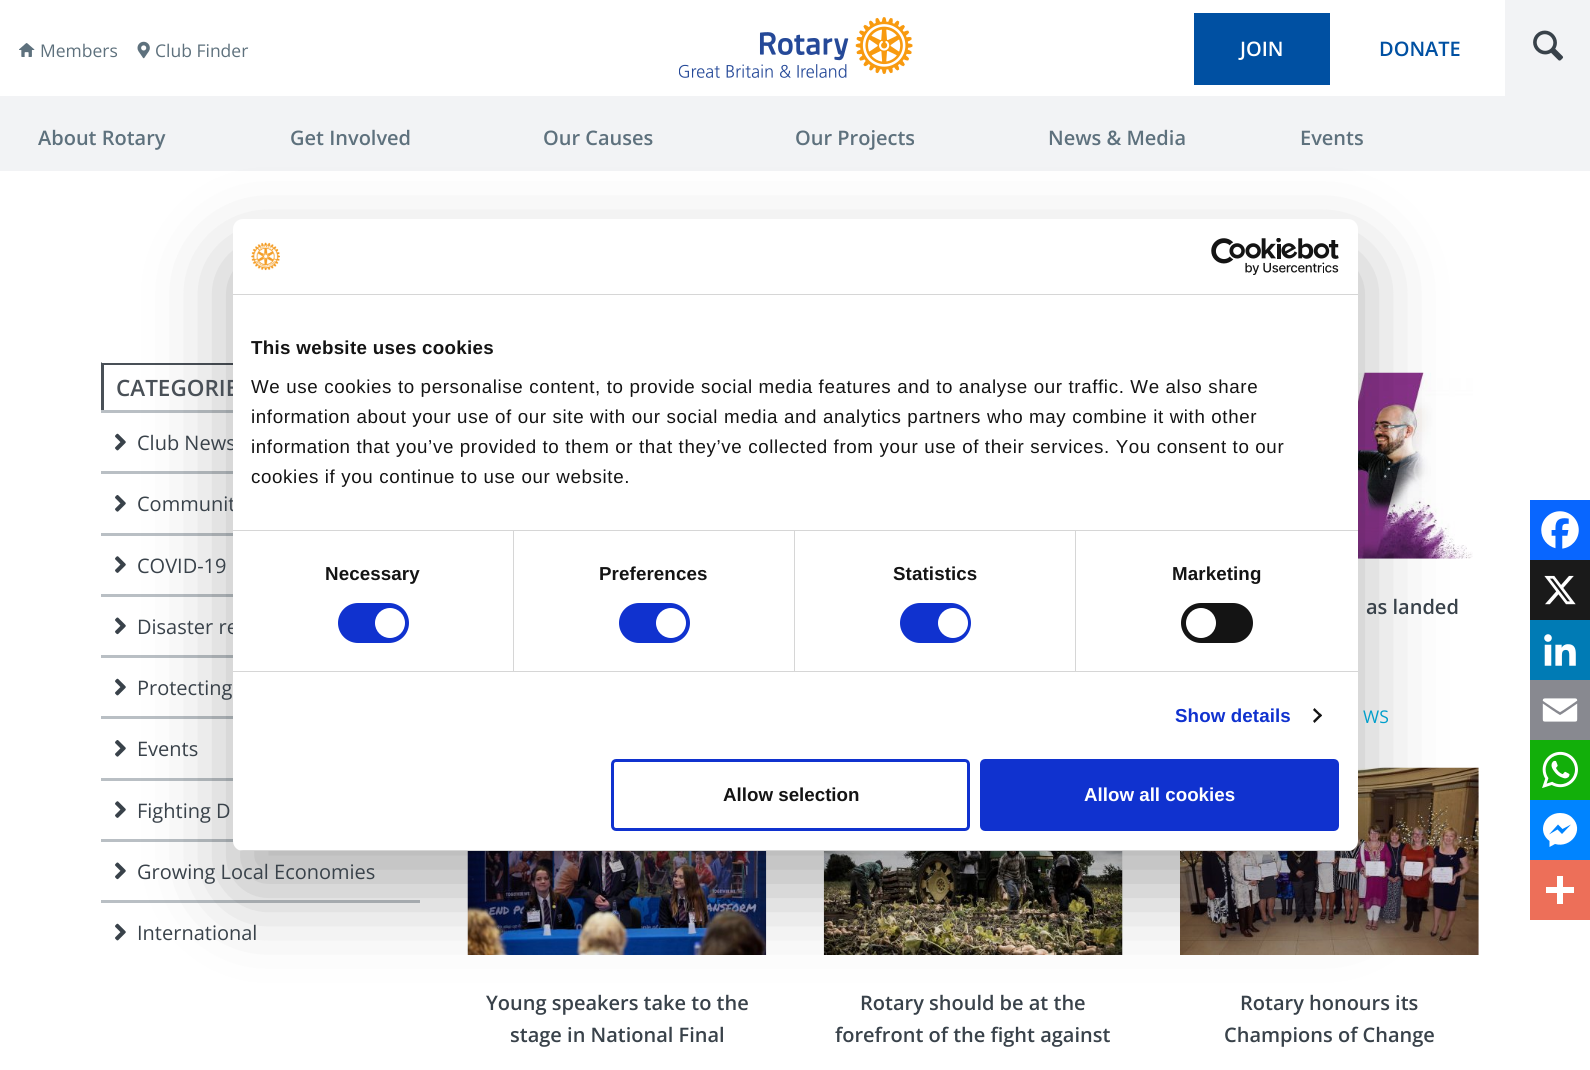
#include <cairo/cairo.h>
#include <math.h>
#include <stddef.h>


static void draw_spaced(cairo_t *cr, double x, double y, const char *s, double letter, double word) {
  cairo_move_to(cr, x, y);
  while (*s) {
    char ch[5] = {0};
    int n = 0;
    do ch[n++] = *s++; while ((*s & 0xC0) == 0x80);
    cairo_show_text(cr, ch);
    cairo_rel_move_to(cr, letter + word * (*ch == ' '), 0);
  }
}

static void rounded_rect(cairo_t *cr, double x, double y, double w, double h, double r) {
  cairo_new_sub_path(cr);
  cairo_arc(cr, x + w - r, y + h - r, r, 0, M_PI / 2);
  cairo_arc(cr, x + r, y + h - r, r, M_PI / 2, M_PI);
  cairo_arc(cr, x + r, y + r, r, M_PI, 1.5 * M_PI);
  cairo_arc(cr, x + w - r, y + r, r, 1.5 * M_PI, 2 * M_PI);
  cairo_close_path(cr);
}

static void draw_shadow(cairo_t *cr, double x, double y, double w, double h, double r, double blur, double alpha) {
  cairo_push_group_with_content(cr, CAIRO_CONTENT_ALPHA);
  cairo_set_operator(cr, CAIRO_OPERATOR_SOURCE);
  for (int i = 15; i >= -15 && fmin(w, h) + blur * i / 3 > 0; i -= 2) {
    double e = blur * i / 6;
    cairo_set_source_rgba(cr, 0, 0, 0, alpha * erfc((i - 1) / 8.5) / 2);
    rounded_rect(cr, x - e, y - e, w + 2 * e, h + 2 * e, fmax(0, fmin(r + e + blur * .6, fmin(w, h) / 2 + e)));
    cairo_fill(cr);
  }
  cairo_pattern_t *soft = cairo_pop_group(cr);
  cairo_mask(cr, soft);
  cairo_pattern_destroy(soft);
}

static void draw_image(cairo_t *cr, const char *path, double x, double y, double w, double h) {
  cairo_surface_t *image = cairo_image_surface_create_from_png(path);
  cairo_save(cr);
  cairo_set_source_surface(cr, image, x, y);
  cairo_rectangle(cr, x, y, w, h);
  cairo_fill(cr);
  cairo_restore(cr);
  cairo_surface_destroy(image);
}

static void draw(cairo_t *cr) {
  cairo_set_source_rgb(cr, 1, 1, 1);
  cairo_paint(cr);
  draw_image(cr, "images/1.png", 19, 43, 16, 14);
  draw_image(cr, "images/2.png", 137, 41, 13, 18);
  draw_image(cr, "images/3.png", 679, 17, 234, 61);
  cairo_set_source_rgb(cr, 0, 80 / 255.0, 162 / 255.0);
  cairo_rectangle(cr, 1194, 13, 136, 72);
  cairo_fill(cr);
  cairo_set_source_rgb(cr, 242 / 255.0, 243 / 255.0, 245 / 255.0);
  cairo_rectangle(cr, 1505, 0, 85, 96);
  cairo_fill(cr);
  draw_image(cr, "images/4.png", 1533, 30, 31, 31);
  cairo_rectangle(cr, 0, 96, 1590, 75);
  cairo_fill(cr);
  cairo_set_source_rgb(cr, 73 / 255.0, 80 / 255.0, 87 / 255.0);
  cairo_rectangle(cr, 101, 363, 132, 2);
  cairo_fill(cr);
  cairo_new_path(cr);
  cairo_move_to(cr, 101, 411);
  cairo_line_to(cr, 101, 362);
  cairo_line_to(cr, 104, 365);
  cairo_line_to(cr, 104, 410);
  cairo_close_path(cr);
  cairo_fill(cr);
  cairo_set_source_rgb(cr, 185 / 255.0, 191 / 255.0, 196 / 255.0);
  cairo_rectangle(cr, 101, 410, 132, 3);
  cairo_fill(cr);
  cairo_rectangle(cr, 101, 471, 132, 3);
  cairo_fill(cr);
  draw_image(cr, "images/7.png", 115, 433, 11, 18);
  cairo_rectangle(cr, 101, 533, 132, 3);
  cairo_fill(cr);
  draw_image(cr, "images/8.png", 115, 495, 11, 17);
  cairo_rectangle(cr, 101, 594, 132, 3);
  cairo_fill(cr);
  draw_image(cr, "images/9.png", 115, 556, 11, 17);
  cairo_rectangle(cr, 101, 655, 132, 3);
  cairo_fill(cr);
  draw_image(cr, "images/10.png", 115, 617, 11, 18);
  cairo_rectangle(cr, 101, 716, 132, 3);
  cairo_fill(cr);
  draw_image(cr, "images/7.png", 115, 678, 11, 18);
  cairo_rectangle(cr, 101, 778, 132, 3);
  cairo_fill(cr);
  draw_image(cr, "images/8.png", 115, 740, 11, 17);
  cairo_rectangle(cr, 101, 839, 133, 3);
  cairo_fill(cr);
  draw_image(cr, "images/9.png", 115, 801, 11, 17);
  cairo_rectangle(cr, 101, 900, 319, 3);
  cairo_fill(cr);
  draw_image(cr, "images/10.png", 115, 862, 11, 18);
  draw_image(cr, "images/7.png", 115, 923, 11, 18);
  draw_image(cr, "images/11.png", 1358, 372, 115, 187);
  draw_image(cr, "images/12.png", 467, 851, 300, 104);
  draw_image(cr, "images/13.png", 823, 851, 300, 104);
  draw_image(cr, "images/14.png", 1180, 767, 299, 188);
  cairo_set_source_rgb(cr, 0, 0, 0);
  draw_shadow(cr, 233, 259, 1125, 632, 10, 42.5, 0.3);
  cairo_set_source_rgb(cr, 8 / 255.0, 102 / 255.0, 1);
  cairo_rectangle(cr, 1530, 500, 60, 60);
  cairo_fill(cr);
  draw_image(cr, "images/15.png", 1541, 511, 38, 38);
  cairo_set_source_rgb(cr, 26 / 255.0, 26 / 255.0, 26 / 255.0);
  cairo_rectangle(cr, 1530, 560, 60, 60);
  cairo_fill(cr);
  draw_image(cr, "images/16.png", 1544, 575, 32, 30);
  cairo_set_source_rgb(cr, 0, 123 / 255.0, 181 / 255.0);
  cairo_rectangle(cr, 1530, 620, 60, 60);
  cairo_fill(cr);
  draw_image(cr, "images/17.png", 1544, 634, 32, 32);
  cairo_set_source_rgb(cr, 136 / 255.0, 137 / 255.0, 144 / 255.0);
  cairo_rectangle(cr, 1530, 680, 60, 60);
  cairo_fill(cr);
  draw_image(cr, "images/18.png", 1542, 698, 36, 24);
  cairo_set_source_rgb(cr, 18 / 255.0, 175 / 255.0, 10 / 255.0);
  cairo_rectangle(cr, 1530, 740, 60, 60);
  cairo_fill(cr);
  draw_image(cr, "images/19.png", 1542, 751, 36, 37);
  cairo_set_source_rgb(cr, 0, 132 / 255.0, 1);
  cairo_rectangle(cr, 1530, 800, 60, 60);
  cairo_fill(cr);
  cairo_set_source_rgb(cr, 1, 1, 1);
  cairo_new_path(cr);
  cairo_move_to(cr, 1560, 813);
  cairo_curve_to(cr, 1544.5, 813, 1536.5, 831.5, 1549.5, 841);
  cairo_line_to(cr, 1549.5, 847);
  cairo_line_to(cr, 1555, 844);
  cairo_curve_to(cr, 1571, 848.5, 1585, 830, 1572, 817.5);
  cairo_curve_to(cr, 1569, 814.5, 1564.5, 813, 1560, 813);
  cairo_move_to(cr, 1562, 834);
  cairo_line_to(cr, 1557.5, 829.5);
  cairo_line_to(cr, 1549, 834.5);
  cairo_line_to(cr, 1558, 824.5);
  cairo_line_to(cr, 1562.5, 829);
  cairo_line_to(cr, 1571, 824.5);
  cairo_close_path(cr);
  cairo_fill(cr);
  cairo_set_source_rgb(cr, 237 / 255.0, 111 / 255.0, 89 / 255.0);
  cairo_rectangle(cr, 1530, 860, 60, 60);
  cairo_fill(cr);
  cairo_set_source_rgb(cr, 1, 1, 1);
  cairo_rectangle(cr, 1557, 876, 6, 28);
  cairo_fill(cr);
  cairo_rectangle(cr, 1546, 887, 28, 6);
  cairo_fill(cr);
  cairo_select_font_face(cr, "Open Sans", CAIRO_FONT_SLANT_NORMAL, CAIRO_FONT_WEIGHT_NORMAL);
  cairo_set_font_size(cr, 17.5);
  cairo_set_source_rgb(cr, 94 / 255.0, 113 / 255.0, 125 / 255.0);
  cairo_move_to(cr, 40, 57);
  cairo_show_text(cr, "Members");
  cairo_move_to(cr, 155, 57);
  cairo_show_text(cr, "Club Finder");
  cairo_select_font_face(cr, "Open Sans SemiBold", CAIRO_FONT_SLANT_NORMAL, CAIRO_FONT_WEIGHT_NORMAL);
  cairo_set_font_size(cr, 20);
  cairo_set_source_rgb(cr, 1, 1, 1);
  cairo_move_to(cr, 1240, 56);
  cairo_show_text(cr, "JOIN");
  cairo_set_source_rgb(cr, 0, 80 / 255.0, 162 / 255.0);
  cairo_move_to(cr, 1379, 56);
  cairo_show_text(cr, "DONATE");
  cairo_set_source_rgb(cr, 94 / 255.0, 113 / 255.0, 125 / 255.0);
  cairo_move_to(cr, 38, 145);
  cairo_show_text(cr, "About Rotary");
  cairo_move_to(cr, 290, 145);
  cairo_show_text(cr, "Get Involved");
  cairo_move_to(cr, 543, 145);
  cairo_show_text(cr, "Our Causes");
  cairo_move_to(cr, 795, 145);
  cairo_show_text(cr, "Our Projects");
  cairo_move_to(cr, 1048, 145);
  cairo_show_text(cr, "News & Media");
  cairo_move_to(cr, 1300, 145);
  cairo_show_text(cr, "Events");
  cairo_set_font_size(cr, 22.5);
  cairo_set_source_rgb(cr, 73 / 255.0, 80 / 255.0, 87 / 255.0);
  cairo_move_to(cr, 116, 396);
  cairo_show_text(cr, "CATEGORIE");
  cairo_select_font_face(cr, "Open Sans", CAIRO_FONT_SLANT_NORMAL, CAIRO_FONT_WEIGHT_NORMAL);
  cairo_set_font_size(cr, 20);
  cairo_set_source_rgb(cr, 57 / 255.0, 66 / 255.0, 74 / 255.0);
  cairo_move_to(cr, 137, 450);
  cairo_show_text(cr, "Club News");
  cairo_move_to(cr, 137, 511);
  cairo_show_text(cr, "Communit");
  cairo_move_to(cr, 137, 573);
  cairo_show_text(cr, "COVID-19");
  cairo_move_to(cr, 137, 634);
  cairo_show_text(cr, "Disaster re");
  cairo_set_source_rgb(cr, 1, 1, 1);
  rounded_rect(cr, 233, 219, 1125, 632, 10);
  cairo_fill(cr);
  cairo_set_source_rgb(cr, 16 / 255.0, 50 / 255.0, 207 / 255.0);
  rounded_rect(cr, 981.5, 760.5, 356, 69, 3.5);
  cairo_fill_preserve(cr);
  cairo_set_line_width(cr, 3);
  cairo_stroke(cr);
  cairo_select_font_face(cr, "Liberation Sans", CAIRO_FONT_SLANT_NORMAL, CAIRO_FONT_WEIGHT_BOLD);
  cairo_set_font_size(cr, 18.75);
  cairo_set_source_rgb(cr, 1, 1, 1);
  cairo_move_to(cr, 1084, 801);
  cairo_show_text(cr, "Allow all cookies");
  rounded_rect(cr, 612.5, 760.5, 356, 69, 3.5);
  cairo_set_source_rgb(cr, 16 / 255.0, 50 / 255.0, 207 / 255.0);
  cairo_stroke(cr);
  cairo_set_source_rgb(cr, 20 / 255.0, 20 / 255.0, 20 / 255.0);
  cairo_move_to(cr, 723, 801);
  cairo_show_text(cr, "Allow selection");
  cairo_save(cr);
  rounded_rect(cr, 233, 219, 1125, 632, 10);
  cairo_clip(cr);
  cairo_set_source_rgb(cr, 214 / 255.0, 214 / 255.0, 214 / 255.0);
  cairo_rectangle(cr, 233, 850, 1125, 1);
  cairo_fill(cr);
  cairo_restore(cr);
  cairo_new_path(cr);
  cairo_move_to(cr, 1314.5, 708);
  cairo_line_to(cr, 1322, 715.5);
  cairo_line_to(cr, 1320.5, 717);
  cairo_line_to(cr, 1313, 710);
  cairo_close_path(cr);
  cairo_fill(cr);
  cairo_new_path(cr);
  cairo_move_to(cr, 1320.5, 713.5);
  cairo_line_to(cr, 1322, 715.5);
  cairo_line_to(cr, 1314.5, 723);
  cairo_line_to(cr, 1313, 721);
  cairo_close_path(cr);
  cairo_fill(cr);
  rounded_rect(cr, 1181, 603, 72, 40, 20);
  cairo_fill(cr);
  cairo_set_source_rgb(cr, 1, 1, 1);
  cairo_arc(cr, 1201, 623, 15, 0, 2 * M_PI);
  cairo_fill(cr);
  cairo_set_source_rgb(cr, 16 / 255.0, 50 / 255.0, 207 / 255.0);
  rounded_rect(cr, 900, 603, 71, 40, 20);
  cairo_fill(cr);
  cairo_set_source_rgb(cr, 1, 1, 1);
  cairo_arc(cr, 953, 623, 15, 0, 2 * M_PI);
  cairo_fill(cr);
  cairo_set_source_rgb(cr, 16 / 255.0, 50 / 255.0, 207 / 255.0);
  rounded_rect(cr, 619, 603, 71, 40, 20);
  cairo_fill(cr);
  cairo_set_source_rgb(cr, 1, 1, 1);
  cairo_arc(cr, 671, 623, 15, 0, 2 * M_PI);
  cairo_fill(cr);
  cairo_set_source_rgb(cr, 16 / 255.0, 50 / 255.0, 207 / 255.0);
  rounded_rect(cr, 338, 603, 71, 40, 20);
  cairo_fill(cr);
  cairo_set_source_rgb(cr, 1, 1, 1);
  cairo_arc(cr, 390, 623, 15, 0, 2 * M_PI);
  cairo_fill(cr);
  cairo_select_font_face(cr, "Liberation Sans", CAIRO_FONT_SLANT_NORMAL, CAIRO_FONT_WEIGHT_NORMAL);
  cairo_set_source_rgb(cr, 20 / 255.0, 20 / 255.0, 20 / 255.0);
  draw_spaced(cr, 251, 483, "cookies if you continue to use our website.", 0.62, 0);
  draw_spaced(cr, 251, 453, "information that you’ve provided to them or that they’ve collected from your use of their services. You consent to our", 0.62, 0);
  draw_spaced(cr, 251, 423, "information about your use of our site with our social media and analytics partners who may combine it with other", 0.62, 0);
  draw_spaced(cr, 251, 393, "We use cookies to personalise content, to provide social media features and to analyse our traffic. We also share", 0.62, 0);
  cairo_select_font_face(cr, "Liberation Sans", CAIRO_FONT_SLANT_NORMAL, CAIRO_FONT_WEIGHT_BOLD);
  draw_spaced(cr, 251, 354, "This website uses cookies", 0.3, 0);
  cairo_set_source_rgb(cr, 214 / 255.0, 214 / 255.0, 214 / 255.0);
  cairo_rectangle(cr, 233, 530, 1125, 1);
  cairo_fill(cr);
  cairo_set_source_rgb(cr, 16 / 255.0, 50 / 255.0, 207 / 255.0);
  draw_spaced(cr, 1175, 722, "Show details", 0.1, 0);
  cairo_set_source_rgb(cr, 20 / 255.0, 20 / 255.0, 20 / 255.0);
  draw_spaced(cr, 1172, 580, "Marketing", 0.1, 0);
  draw_spaced(cr, 893, 580, "Statistics", 0.1, 0);
  cairo_set_source_rgb(cr, 214 / 255.0, 214 / 255.0, 214 / 255.0);
  cairo_rectangle(cr, 1075, 531, 1, 140);
  cairo_fill(cr);
  cairo_set_source_rgb(cr, 20 / 255.0, 20 / 255.0, 20 / 255.0);
  draw_spaced(cr, 599, 580, "Preferences", 0.1, 0);
  cairo_set_source_rgb(cr, 214 / 255.0, 214 / 255.0, 214 / 255.0);
  cairo_rectangle(cr, 794, 531, 1, 140);
  cairo_fill(cr);
  cairo_set_source_rgb(cr, 20 / 255.0, 20 / 255.0, 20 / 255.0);
  draw_spaced(cr, 325, 580, "Necessary", 0.1, 0);
  cairo_set_source_rgb(cr, 214 / 255.0, 214 / 255.0, 214 / 255.0);
  cairo_rectangle(cr, 513, 531, 1, 140);
  cairo_fill(cr);
  cairo_rectangle(cr, 233, 671, 1125, 1);
  cairo_fill(cr);
  draw_image(cr, "images/6.png", 1211, 238, 128, 37);
  draw_image(cr, "images/5.png", 251, 242, 29, 29);
  cairo_rectangle(cr, 233, 294, 1125, 1);
  cairo_fill(cr);
  cairo_select_font_face(cr, "Open Sans", CAIRO_FONT_SLANT_NORMAL, CAIRO_FONT_WEIGHT_NORMAL);
  cairo_set_font_size(cr, 20);
  cairo_set_source_rgb(cr, 57 / 255.0, 66 / 255.0, 74 / 255.0);
  cairo_move_to(cr, 137, 695);
  cairo_show_text(cr, "Protecting");
  cairo_move_to(cr, 137, 756);
  cairo_show_text(cr, "Events");
  cairo_move_to(cr, 137, 818);
  cairo_show_text(cr, "Fighting D");
  cairo_move_to(cr, 137, 879);
  cairo_show_text(cr, "Growing Local Economies");
  cairo_move_to(cr, 137, 940);
  cairo_show_text(cr, "International");
  cairo_select_font_face(cr, "Open Sans SemiBold", CAIRO_FONT_SLANT_NORMAL, CAIRO_FONT_WEIGHT_NORMAL);
  cairo_move_to(cr, 1366, 614);
  cairo_show_text(cr, "as landed");
  cairo_select_font_face(cr, "Open Sans", CAIRO_FONT_SLANT_NORMAL, CAIRO_FONT_WEIGHT_NORMAL);
  cairo_set_font_size(cr, 17.5);
  cairo_set_source_rgb(cr, 1 / 255.0, 159 / 255.0, 203 / 255.0);
  cairo_move_to(cr, 1363, 723);
  cairo_show_text(cr, "WS");
  cairo_select_font_face(cr, "Open Sans SemiBold", CAIRO_FONT_SLANT_NORMAL, CAIRO_FONT_WEIGHT_NORMAL);
  cairo_set_font_size(cr, 20);
  cairo_set_source_rgb(cr, 57 / 255.0, 66 / 255.0, 74 / 255.0);
  cairo_move_to(cr, 486, 1010);
  cairo_show_text(cr, "Young speakers take to the");
  cairo_move_to(cr, 510, 1042);
  cairo_show_text(cr, "stage in National Final");
  cairo_move_to(cr, 860, 1010);
  cairo_show_text(cr, "Rotary should be at the");
  cairo_move_to(cr, 835, 1042);
  cairo_show_text(cr, "forefront of the fight against");
  cairo_move_to(cr, 1240, 1010);
  cairo_show_text(cr, "Rotary honours its");
  cairo_move_to(cr, 1224, 1042);
  cairo_show_text(cr, "Champions of Change");
}

int main(void) {
  cairo_surface_t *surface = cairo_image_surface_create(CAIRO_FORMAT_RGB24, 1590, 1070);
  cairo_t *cr = cairo_create(surface);
  cairo_font_options_t *options = cairo_font_options_create();
  cairo_font_options_set_hint_metrics(options, CAIRO_HINT_METRICS_OFF);
  cairo_font_options_set_hint_style(options, CAIRO_HINT_STYLE_NONE);
  cairo_set_font_options(cr, options);
  cairo_set_miter_limit(cr, 4);
  draw(cr);
  cairo_surface_write_to_png(surface, "out.png");
  cairo_font_options_destroy(options);
  cairo_destroy(cr);
  cairo_surface_destroy(surface);
  return 0;
}
